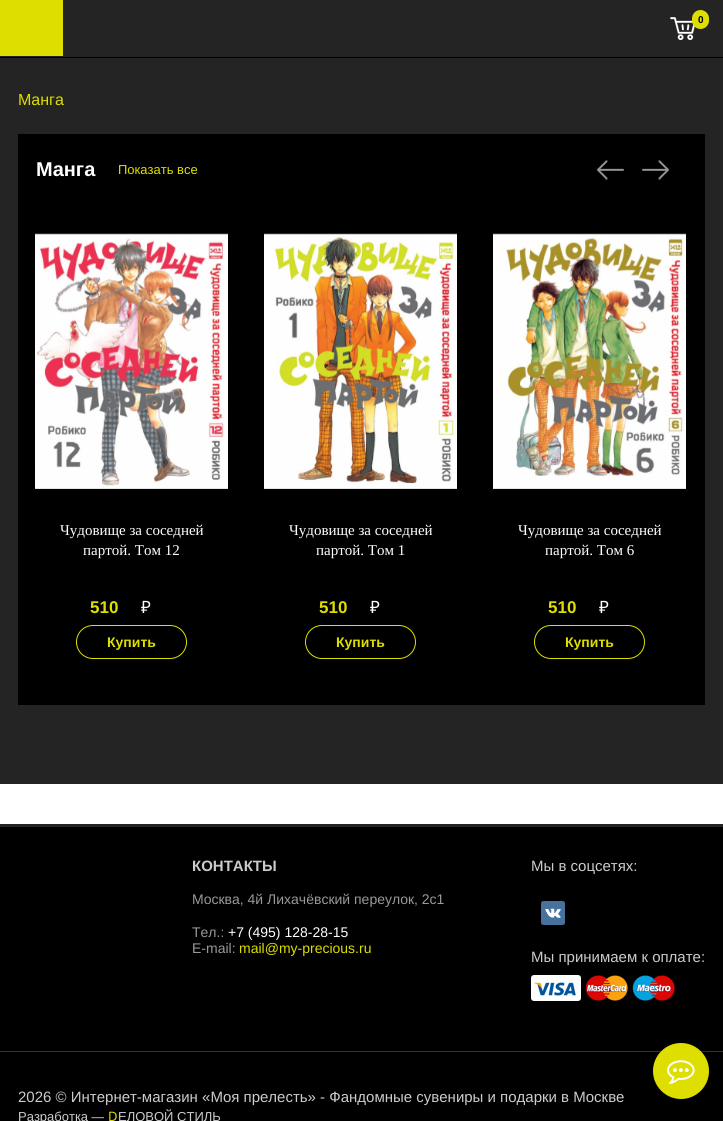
#include <cairo/cairo.h>
#include <math.h>
#include <stddef.h>


static void rounded_rect(cairo_t *cr, double x, double y, double w, double h, double r) {
  cairo_new_sub_path(cr);
  cairo_arc(cr, x + w - r, y + h - r, r, 0, M_PI / 2);
  cairo_arc(cr, x + r, y + h - r, r, M_PI / 2, M_PI);
  cairo_arc(cr, x + r, y + r, r, M_PI, 1.5 * M_PI);
  cairo_arc(cr, x + w - r, y + r, r, 1.5 * M_PI, 2 * M_PI);
  cairo_close_path(cr);
}

static void draw_shadow(cairo_t *cr, double x, double y, double w, double h, double r, double blur, double alpha) {
  cairo_push_group_with_content(cr, CAIRO_CONTENT_ALPHA);
  cairo_set_operator(cr, CAIRO_OPERATOR_SOURCE);
  for (int i = 15; i >= -15 && fmin(w, h) + blur * i / 3 > 0; i -= 2) {
    double e = blur * i / 6;
    cairo_set_source_rgba(cr, 0, 0, 0, alpha * erfc((i - 1) / 8.5) / 2);
    rounded_rect(cr, x - e, y - e, w + 2 * e, h + 2 * e, fmax(0, fmin(r + e + blur * .6, fmin(w, h) / 2 + e)));
    cairo_fill(cr);
  }
  cairo_pattern_t *soft = cairo_pop_group(cr);
  cairo_mask(cr, soft);
  cairo_pattern_destroy(soft);
}

static void draw_image(cairo_t *cr, const char *path, double x, double y, double w, double h) {
  cairo_surface_t *image = cairo_image_surface_create_from_png(path);
  cairo_save(cr);
  cairo_set_source_surface(cr, image, x, y);
  cairo_rectangle(cr, x, y, w, h);
  cairo_fill(cr);
  cairo_restore(cr);
  cairo_surface_destroy(image);
}

static void draw(cairo_t *cr) {
  cairo_set_source_rgb(cr, 36 / 255.0, 36 / 255.0, 36 / 255.0);
  cairo_paint(cr);
  cairo_set_source_rgb(cr, 0, 0, 0);
  cairo_rectangle(cr, 0, 57, 723, 1);
  cairo_fill(cr);
  cairo_set_source_rgb(cr, 222 / 255.0, 222 / 255.0, 1 / 255.0);
  cairo_rectangle(cr, 0, 0, 63, 56);
  cairo_fill(cr);
  draw_image(cr, "images/1.png", 670, 17, 25, 23);
  rounded_rect(cr, 693, 11, 15, 17, 7.5);
  cairo_fill_preserve(cr);
  cairo_stroke(cr);
  cairo_set_source_rgb(cr, 0, 0, 0);
  cairo_rectangle(cr, 18, 134, 687, 571);
  cairo_fill(cr);
  draw_image(cr, "images/2.png", 597, 160, 27, 20);
  draw_image(cr, "images/3.png", 642, 160, 27, 20);
  draw_image(cr, "images/4.png", 35, 233, 193, 256);
  rounded_rect(cr, 76.5, 625.5, 110, 33, 16.5);
  cairo_set_source_rgb(cr, 222 / 255.0, 222 / 255.0, 1 / 255.0);
  cairo_set_line_width(cr, 1);
  cairo_stroke(cr);
  draw_image(cr, "images/5.png", 264, 233, 193, 256);
  rounded_rect(cr, 305.5, 625.5, 110, 33, 16.5);
  cairo_stroke(cr);
  draw_image(cr, "images/6.png", 493, 233, 193, 256);
  rounded_rect(cr, 534.5, 625.5, 110, 33, 16.5);
  cairo_stroke(cr);
  cairo_set_source_rgb(cr, 1, 1, 1);
  cairo_rectangle(cr, 0, 784, 723, 40);
  cairo_fill(cr);
  cairo_set_source_rgb(cr, 0, 0, 0);
  cairo_rectangle(cr, 0, 827, 723, 224);
  cairo_fill(cr);
  draw_image(cr, "images/7.png", 541, 901, 24, 24);
  draw_image(cr, "images/8.png", 531, 975, 50, 26);
  draw_image(cr, "images/9.png", 585, 975, 43, 26);
  draw_image(cr, "images/10.png", 632, 975, 43, 26);
  cairo_rectangle(cr, 0, 1052, 723, 69);
  cairo_fill(cr);
  cairo_set_source_rgb(cr, 51 / 255.0, 51 / 255.0, 51 / 255.0);
  cairo_rectangle(cr, 0, 1051, 723, 1);
  cairo_fill(cr);
  cairo_set_source_rgb(cr, 0, 0, 0);
  draw_shadow(cr, 654, 1044, 56, 56, 28, 2.5, 0.5);
  cairo_set_source_rgb(cr, 222 / 255.0, 222 / 255.0, 1 / 255.0);
  cairo_arc(cr, 681, 1071, 28, 0, 2 * M_PI);
  cairo_fill(cr);
  draw_image(cr, "images/11.png", 667, 1060, 28, 24);
  cairo_select_font_face(cr, "Liberation Sans", CAIRO_FONT_SLANT_NORMAL, CAIRO_FONT_WEIGHT_BOLD);
  cairo_set_font_size(cr, 10);
  cairo_set_source_rgb(cr, 0, 0, 0);
  cairo_move_to(cr, 698, 23);
  cairo_show_text(cr, "0");
  cairo_select_font_face(cr, "Liberation Sans", CAIRO_FONT_SLANT_NORMAL, CAIRO_FONT_WEIGHT_NORMAL);
  cairo_set_font_size(cr, 16);
  cairo_set_source_rgb(cr, 222 / 255.0, 222 / 255.0, 1 / 255.0);
  cairo_move_to(cr, 18, 105);
  cairo_show_text(cr, "Манга");
  cairo_select_font_face(cr, "Liberation Sans", CAIRO_FONT_SLANT_NORMAL, CAIRO_FONT_WEIGHT_BOLD);
  cairo_set_font_size(cr, 20);
  cairo_set_source_rgb(cr, 1, 1, 1);
  cairo_move_to(cr, 36, 176);
  cairo_show_text(cr, "Манга");
  cairo_select_font_face(cr, "Liberation Sans", CAIRO_FONT_SLANT_NORMAL, CAIRO_FONT_WEIGHT_NORMAL);
  cairo_set_font_size(cr, 13);
  cairo_set_source_rgb(cr, 222 / 255.0, 222 / 255.0, 1 / 255.0);
  cairo_move_to(cr, 118, 174);
  cairo_show_text(cr, "Показать все");
  cairo_select_font_face(cr, "Liberation Serif", CAIRO_FONT_SLANT_NORMAL, CAIRO_FONT_WEIGHT_NORMAL);
  cairo_set_font_size(cr, 15);
  cairo_set_source_rgb(cr, 1, 1, 1);
  cairo_move_to(cr, 60, 535);
  cairo_show_text(cr, "Чудовище за соседней");
  cairo_move_to(cr, 83, 555);
  cairo_show_text(cr, "партой. Том 12");
  cairo_select_font_face(cr, "Liberation Sans", CAIRO_FONT_SLANT_NORMAL, CAIRO_FONT_WEIGHT_BOLD);
  cairo_set_font_size(cr, 17);
  cairo_set_source_rgb(cr, 222 / 255.0, 222 / 255.0, 1 / 255.0);
  cairo_move_to(cr, 90, 613);
  cairo_show_text(cr, "510");
  cairo_select_font_face(cr, "Noto Sans", CAIRO_FONT_SLANT_NORMAL, CAIRO_FONT_WEIGHT_NORMAL);
  cairo_set_source_rgb(cr, 1, 1, 1);
  cairo_move_to(cr, 141, 613);
  cairo_show_text(cr, "₽");
  cairo_select_font_face(cr, "Liberation Sans", CAIRO_FONT_SLANT_NORMAL, CAIRO_FONT_WEIGHT_BOLD);
  cairo_set_font_size(cr, 14);
  cairo_set_source_rgb(cr, 222 / 255.0, 222 / 255.0, 1 / 255.0);
  cairo_move_to(cr, 107, 647);
  cairo_show_text(cr, "Купить");
  cairo_select_font_face(cr, "Liberation Serif", CAIRO_FONT_SLANT_NORMAL, CAIRO_FONT_WEIGHT_NORMAL);
  cairo_set_font_size(cr, 15);
  cairo_set_source_rgb(cr, 1, 1, 1);
  cairo_move_to(cr, 289, 535);
  cairo_show_text(cr, "Чудовище за соседней");
  cairo_move_to(cr, 316, 555);
  cairo_show_text(cr, "партой. Том 1");
  cairo_select_font_face(cr, "Liberation Sans", CAIRO_FONT_SLANT_NORMAL, CAIRO_FONT_WEIGHT_BOLD);
  cairo_set_font_size(cr, 17);
  cairo_set_source_rgb(cr, 222 / 255.0, 222 / 255.0, 1 / 255.0);
  cairo_move_to(cr, 319, 613);
  cairo_show_text(cr, "510");
  cairo_select_font_face(cr, "Noto Sans", CAIRO_FONT_SLANT_NORMAL, CAIRO_FONT_WEIGHT_NORMAL);
  cairo_set_source_rgb(cr, 1, 1, 1);
  cairo_move_to(cr, 370, 613);
  cairo_show_text(cr, "₽");
  cairo_select_font_face(cr, "Liberation Sans", CAIRO_FONT_SLANT_NORMAL, CAIRO_FONT_WEIGHT_BOLD);
  cairo_set_font_size(cr, 14);
  cairo_set_source_rgb(cr, 222 / 255.0, 222 / 255.0, 1 / 255.0);
  cairo_move_to(cr, 336, 647);
  cairo_show_text(cr, "Купить");
  cairo_select_font_face(cr, "Liberation Serif", CAIRO_FONT_SLANT_NORMAL, CAIRO_FONT_WEIGHT_NORMAL);
  cairo_set_font_size(cr, 15);
  cairo_set_source_rgb(cr, 1, 1, 1);
  cairo_move_to(cr, 518, 535);
  cairo_show_text(cr, "Чудовище за соседней");
  cairo_move_to(cr, 545, 555);
  cairo_show_text(cr, "партой. Том 6");
  cairo_select_font_face(cr, "Liberation Sans", CAIRO_FONT_SLANT_NORMAL, CAIRO_FONT_WEIGHT_BOLD);
  cairo_set_font_size(cr, 17);
  cairo_set_source_rgb(cr, 222 / 255.0, 222 / 255.0, 1 / 255.0);
  cairo_move_to(cr, 548, 613);
  cairo_show_text(cr, "510");
  cairo_select_font_face(cr, "Noto Sans", CAIRO_FONT_SLANT_NORMAL, CAIRO_FONT_WEIGHT_NORMAL);
  cairo_set_source_rgb(cr, 1, 1, 1);
  cairo_move_to(cr, 599, 613);
  cairo_show_text(cr, "₽");
  cairo_select_font_face(cr, "Liberation Sans", CAIRO_FONT_SLANT_NORMAL, CAIRO_FONT_WEIGHT_BOLD);
  cairo_set_font_size(cr, 14);
  cairo_set_source_rgb(cr, 222 / 255.0, 222 / 255.0, 1 / 255.0);
  cairo_move_to(cr, 565, 647);
  cairo_show_text(cr, "Купить");
  cairo_set_font_size(cr, 15);
  cairo_set_source_rgb(cr, 204 / 255.0, 204 / 255.0, 204 / 255.0);
  cairo_move_to(cr, 192, 871);
  cairo_show_text(cr, "КОНТАКТЫ");
  cairo_select_font_face(cr, "Liberation Sans", CAIRO_FONT_SLANT_NORMAL, CAIRO_FONT_WEIGHT_NORMAL);
  cairo_set_font_size(cr, 14);
  cairo_set_source_rgb(cr, 153 / 255.0, 153 / 255.0, 153 / 255.0);
  cairo_move_to(cr, 192, 904);
  cairo_show_text(cr, "Москва, 4й Лихачёвский переулок, 2с1");
  cairo_move_to(cr, 192, 937);
  cairo_show_text(cr, "Тел.:");
  cairo_set_source_rgb(cr, 1, 1, 1);
  cairo_move_to(cr, 228, 937);
  cairo_show_text(cr, "+7 (495) 128-28-15");
  cairo_set_source_rgb(cr, 153 / 255.0, 153 / 255.0, 153 / 255.0);
  cairo_move_to(cr, 192, 953);
  cairo_show_text(cr, "E-mail:");
  cairo_set_source_rgb(cr, 222 / 255.0, 222 / 255.0, 1 / 255.0);
  cairo_move_to(cr, 239, 953);
  cairo_show_text(cr, "mail@my-precious.ru");
  cairo_set_font_size(cr, 15);
  cairo_set_source_rgb(cr, 204 / 255.0, 204 / 255.0, 204 / 255.0);
  cairo_move_to(cr, 531, 871);
  cairo_show_text(cr, "Мы в соцсетях:");
  cairo_move_to(cr, 531, 962);
  cairo_show_text(cr, "Мы принимаем к оплате:");
  cairo_move_to(cr, 18, 1102);
  cairo_show_text(cr, "2026 © Интернет-магазин «Моя прелесть» - Фандомные сувениры и подарки в Москве");
  cairo_set_font_size(cr, 13);
  cairo_move_to(cr, 18, 1121);
  cairo_show_text(cr, "Разработка —");
  cairo_select_font_face(cr, "Noto Sans", CAIRO_FONT_SLANT_NORMAL, CAIRO_FONT_WEIGHT_NORMAL);
  cairo_set_source_rgb(cr, 222 / 255.0, 222 / 255.0, 1 / 255.0);
  cairo_move_to(cr, 108, 1121);
  cairo_show_text(cr, "D");
  cairo_select_font_face(cr, "Liberation Sans", CAIRO_FONT_SLANT_NORMAL, CAIRO_FONT_WEIGHT_NORMAL);
  cairo_set_source_rgb(cr, 204 / 255.0, 204 / 255.0, 204 / 255.0);
  cairo_move_to(cr, 118, 1121);
  cairo_show_text(cr, "ЕЛОВОЙ СТИЛЬ");
}

int main(void) {
  cairo_surface_t *surface = cairo_image_surface_create(CAIRO_FORMAT_RGB24, 723, 1121);
  cairo_t *cr = cairo_create(surface);
  cairo_font_options_t *options = cairo_font_options_create();
  cairo_font_options_set_hint_metrics(options, CAIRO_HINT_METRICS_OFF);
  cairo_font_options_set_hint_style(options, CAIRO_HINT_STYLE_NONE);
  cairo_set_font_options(cr, options);
  cairo_set_miter_limit(cr, 4);
  draw(cr);
  cairo_surface_write_to_png(surface, "out.png");
  cairo_font_options_destroy(options);
  cairo_destroy(cr);
  cairo_surface_destroy(surface);
  return 0;
}
